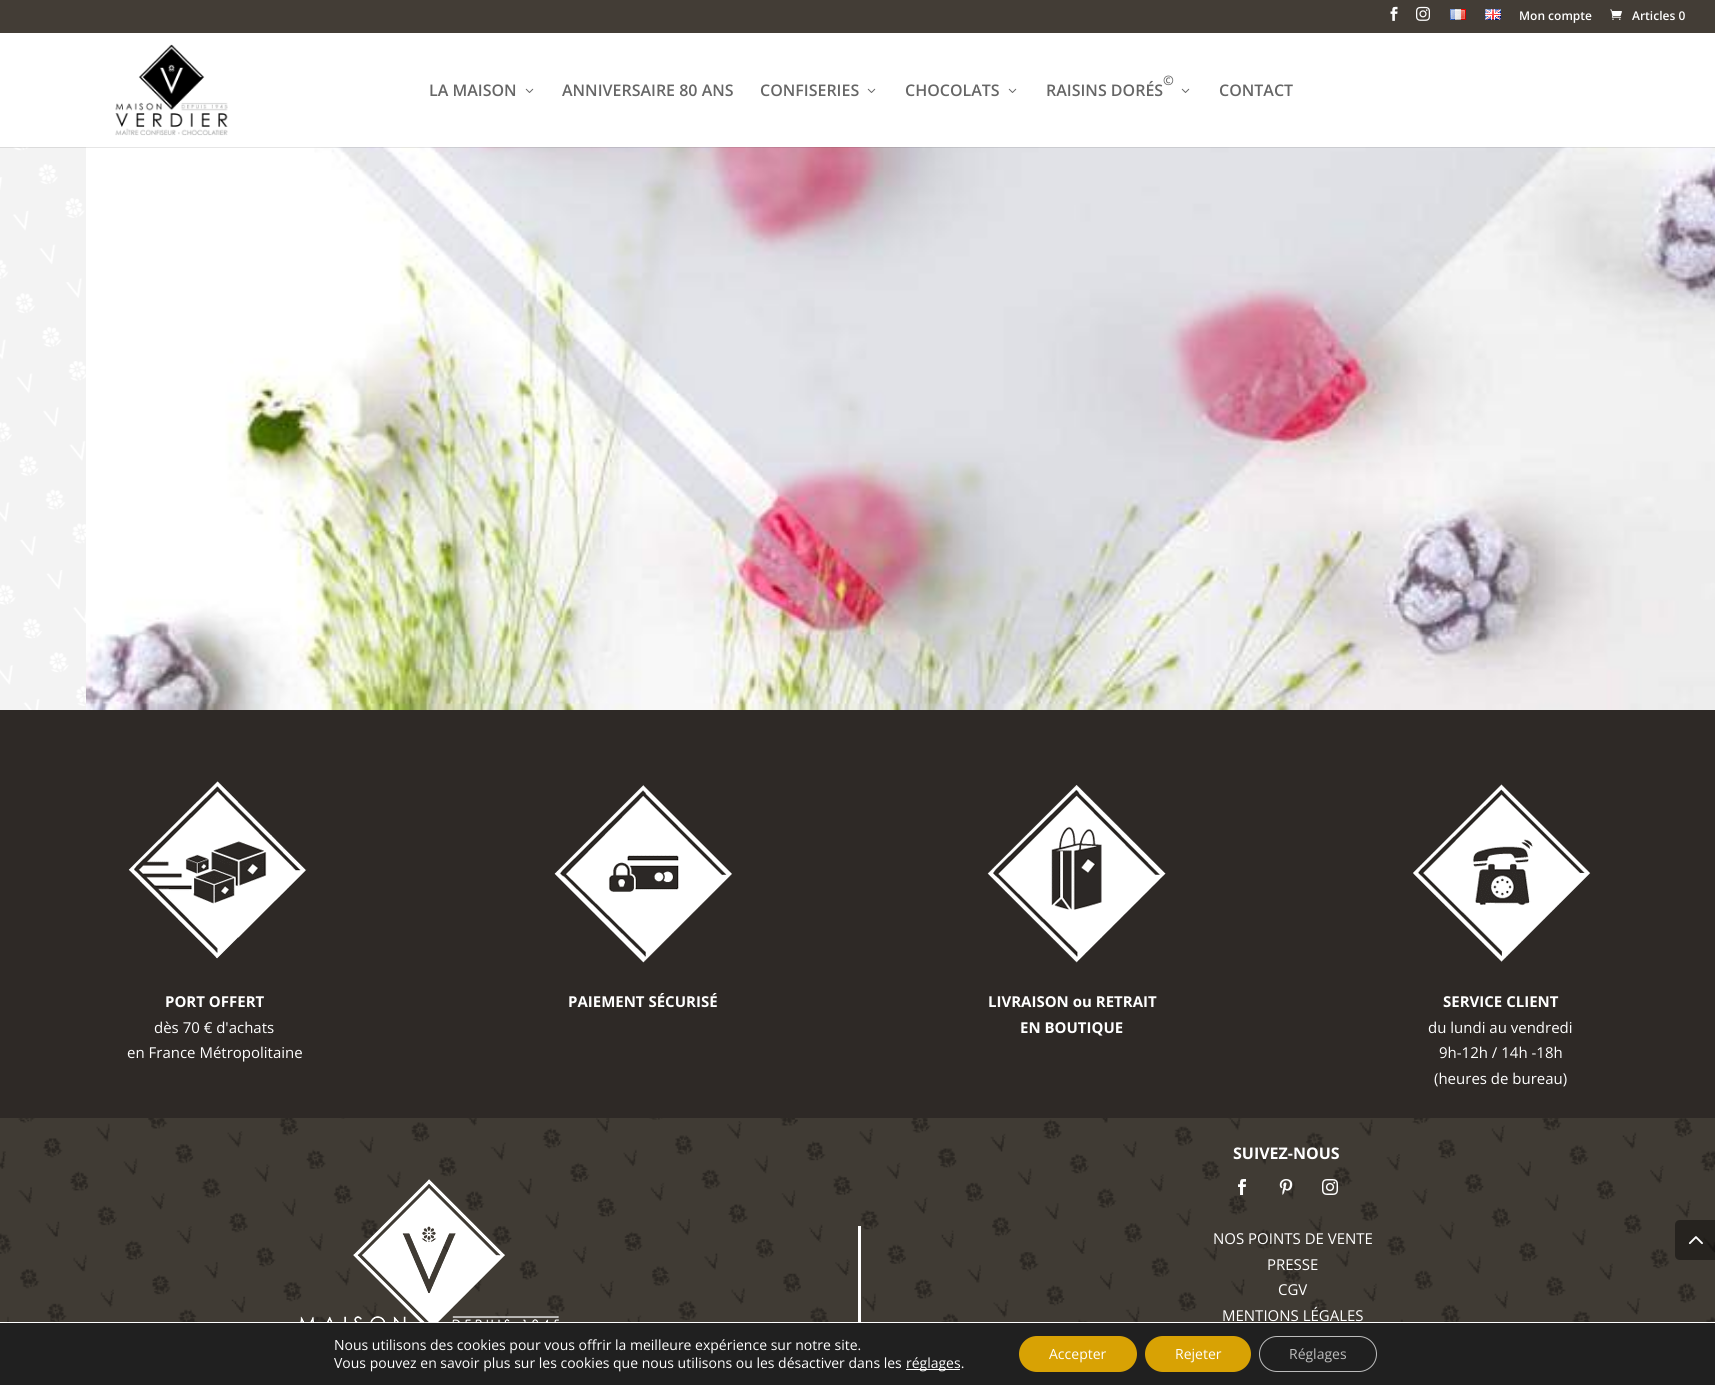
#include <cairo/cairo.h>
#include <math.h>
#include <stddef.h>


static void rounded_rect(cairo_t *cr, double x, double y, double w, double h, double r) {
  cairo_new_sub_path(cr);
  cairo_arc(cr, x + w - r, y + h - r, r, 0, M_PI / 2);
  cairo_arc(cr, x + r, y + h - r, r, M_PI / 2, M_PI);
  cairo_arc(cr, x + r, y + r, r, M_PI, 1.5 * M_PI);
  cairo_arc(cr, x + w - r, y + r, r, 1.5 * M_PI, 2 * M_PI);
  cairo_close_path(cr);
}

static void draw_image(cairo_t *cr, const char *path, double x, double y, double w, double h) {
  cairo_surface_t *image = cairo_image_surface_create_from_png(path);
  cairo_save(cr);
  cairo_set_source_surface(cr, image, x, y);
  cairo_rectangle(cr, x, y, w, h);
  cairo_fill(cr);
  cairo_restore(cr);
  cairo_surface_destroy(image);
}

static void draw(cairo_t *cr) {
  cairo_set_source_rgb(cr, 243 / 255.0, 243 / 255.0, 243 / 255.0);
  cairo_paint(cr);
  draw_image(cr, "images/1.png", 0, 147, 86, 563);
  cairo_set_source_rgb(cr, 67 / 255.0, 61 / 255.0, 54 / 255.0);
  cairo_rectangle(cr, 0, 0, 1715, 33);
  cairo_fill(cr);
  draw_image(cr, "images/2.png", 1390, 6, 8, 15);
  draw_image(cr, "images/3.png", 1416, 6, 14, 15);
  draw_image(cr, "images/4.png", 1450, 9, 16, 11);
  draw_image(cr, "images/5.png", 1485, 9, 16, 11);
  draw_image(cr, "images/6.png", 1610, 9, 12, 11);
  draw_image(cr, "images/9.png", 86, 147, 1629, 563);
  cairo_set_source_rgba(cr, 0, 0, 0, 0.1);
  cairo_rectangle(cr, 0, 147, 1715, 1);
  cairo_fill(cr);
  cairo_set_source_rgb(cr, 1, 1, 1);
  cairo_rectangle(cr, 0, 33, 1715, 114);
  cairo_fill(cr);
  draw_image(cr, "images/7.png", 115, 44, 113, 92);
  draw_image(cr, "images/8.png", 525, 88, 9, 5);
  draw_image(cr, "images/8.png", 867, 88, 9, 5);
  draw_image(cr, "images/8.png", 1008, 88, 9, 5);
  draw_image(cr, "images/8.png", 1181, 88, 9, 5);
  draw_image(cr, "images/10.png", 0, 1118, 1715, 204);
  cairo_set_source_rgb(cr, 46 / 255.0, 41 / 255.0, 38 / 255.0);
  cairo_rectangle(cr, 0, 710, 1715, 408);
  cairo_fill(cr);
  draw_image(cr, "images/11.png", 128, 781, 179, 178);
  draw_image(cr, "images/12.png", 554, 785, 178, 178);
  draw_image(cr, "images/13.png", 987, 785, 179, 178);
  draw_image(cr, "images/14.png", 1413, 784, 178, 178);
  draw_image(cr, "images/15.png", 300, 1179, 259, 143);
  draw_image(cr, "images/16.png", 1238, 1179, 8, 16);
  draw_image(cr, "images/17.png", 1279, 1179, 14, 16);
  draw_image(cr, "images/18.png", 1322, 1179, 16, 16);
  cairo_set_source_rgb(cr, 1, 1, 1);
  cairo_rectangle(cr, 858, 1226, 3, 102);
  cairo_fill(cr);
  cairo_set_source_rgba(cr, 0, 0, 0, 0.4);
  cairo_new_path(cr);
  cairo_move_to(cr, 1680, 1220);
  cairo_line_to(cr, 1715, 1220);
  cairo_line_to(cr, 1715, 1260);
  cairo_line_to(cr, 1680, 1260);
  cairo_curve_to(cr, 1677, 1260, 1675, 1258, 1675, 1255);
  cairo_line_to(cr, 1675, 1225);
  cairo_curve_to(cr, 1675, 1222, 1677, 1220, 1680, 1220);
  cairo_close_path(cr);
  cairo_fill(cr);
  draw_image(cr, "images/19.png", 1688, 1236, 15, 9);
  cairo_set_source_rgb(cr, 32 / 255.0, 32 / 255.0, 32 / 255.0);
  cairo_rectangle(cr, 0, 1323, 1715, 62);
  cairo_fill(cr);
  cairo_set_source_rgb(cr, 1, 1, 1);
  cairo_rectangle(cr, 0, 1322, 1715, 1);
  cairo_fill(cr);
  cairo_rectangle(cr, 906, 1369, 54, 1);
  cairo_fill(cr);
  cairo_set_source_rgb(cr, 216 / 255.0, 162 / 255.0, 4 / 255.0);
  rounded_rect(cr, 1019, 1336, 118, 36, 18);
  cairo_fill(cr);
  rounded_rect(cr, 1145, 1336, 106, 36, 18);
  cairo_fill(cr);
  rounded_rect(cr, 1259.5, 1336.5, 117, 35, 17.5);
  cairo_set_source_rgb(cr, 188 / 255.0, 188 / 255.0, 188 / 255.0);
  cairo_set_line_width(cr, 1);
  cairo_stroke(cr);
  cairo_select_font_face(cr, "Open Sans SemiBold", CAIRO_FONT_SLANT_NORMAL, CAIRO_FONT_WEIGHT_NORMAL);
  cairo_set_font_size(cr, 12);
  cairo_set_source_rgb(cr, 1, 1, 1);
  cairo_move_to(cr, 1519, 20);
  cairo_show_text(cr, "Mon compte");
  cairo_move_to(cr, 1632, 20);
  cairo_show_text(cr, "Articles 0");
  cairo_set_font_size(cr, 16);
  cairo_set_source_rgb(cr, 102 / 255.0, 102 / 255.0, 102 / 255.0);
  cairo_move_to(cr, 429, 96);
  cairo_show_text(cr, "LA MAISON");
  cairo_move_to(cr, 562, 96);
  cairo_show_text(cr, "ANNIVERSAIRE 80 ANS");
  cairo_move_to(cr, 760, 96);
  cairo_show_text(cr, "CONFISERIES");
  cairo_move_to(cr, 905, 96);
  cairo_show_text(cr, "CHOCOLATS");
  cairo_move_to(cr, 1046, 96);
  cairo_show_text(cr, "RAISINS DORÉS");
  cairo_set_font_size(cr, 13);
  cairo_move_to(cr, 1163, 85);
  cairo_show_text(cr, "©");
  cairo_set_font_size(cr, 16);
  cairo_move_to(cr, 1219, 96);
  cairo_show_text(cr, "CONTACT");
  cairo_select_font_face(cr, "Open Sans", CAIRO_FONT_SLANT_NORMAL, CAIRO_FONT_WEIGHT_BOLD);
  cairo_set_font_size(cr, 15);
  cairo_set_source_rgb(cr, 1, 1, 1);
  cairo_move_to(cr, 165, 1007);
  cairo_show_text(cr, "PORT OFFERT");
  cairo_select_font_face(cr, "Open Sans", CAIRO_FONT_SLANT_NORMAL, CAIRO_FONT_WEIGHT_NORMAL);
  cairo_move_to(cr, 154, 1033);
  cairo_show_text(cr, "dès 70 € d'achats");
  cairo_move_to(cr, 127, 1058);
  cairo_show_text(cr, "en France Métropolitaine");
  cairo_select_font_face(cr, "Open Sans", CAIRO_FONT_SLANT_NORMAL, CAIRO_FONT_WEIGHT_BOLD);
  cairo_move_to(cr, 568, 1007);
  cairo_show_text(cr, "PAIEMENT SÉCURISÉ");
  cairo_move_to(cr, 988, 1007);
  cairo_show_text(cr, "LIVRAISON ou RETRAIT");
  cairo_move_to(cr, 1020, 1033);
  cairo_show_text(cr, "EN BOUTIQUE");
  cairo_move_to(cr, 1443, 1007);
  cairo_show_text(cr, "SERVICE CLIENT");
  cairo_select_font_face(cr, "Open Sans", CAIRO_FONT_SLANT_NORMAL, CAIRO_FONT_WEIGHT_NORMAL);
  cairo_move_to(cr, 1428, 1033);
  cairo_show_text(cr, "du lundi au vendredi");
  cairo_move_to(cr, 1439, 1058);
  cairo_show_text(cr, "9h-12h / 14h -18h");
  cairo_move_to(cr, 1434, 1084);
  cairo_show_text(cr, "(heures de bureau)");
  cairo_select_font_face(cr, "Open Sans", CAIRO_FONT_SLANT_NORMAL, CAIRO_FONT_WEIGHT_BOLD);
  cairo_set_font_size(cr, 16);
  cairo_move_to(cr, 1233, 1159);
  cairo_show_text(cr, "SUIVEZ-NOUS");
  cairo_select_font_face(cr, "Open Sans", CAIRO_FONT_SLANT_NORMAL, CAIRO_FONT_WEIGHT_NORMAL);
  cairo_set_font_size(cr, 15);
  cairo_move_to(cr, 1213, 1244);
  cairo_show_text(cr, "NOS POINTS DE VENTE");
  cairo_move_to(cr, 1267, 1270);
  cairo_show_text(cr, "PRESSE");
  cairo_move_to(cr, 1278, 1295);
  cairo_show_text(cr, "CGV");
  cairo_move_to(cr, 1222, 1321);
  cairo_show_text(cr, "MENTIONS LÉGALES");
  cairo_set_font_size(cr, 14);
  cairo_move_to(cr, 334, 1350);
  cairo_show_text(cr, "Nous utilisons des cookies pour vous offrir la meilleure expérience sur notre site.");
  cairo_move_to(cr, 334, 1368);
  cairo_show_text(cr, "Vous pouvez en savoir plus sur les cookies que nous utilisons ou les désactiver dans les");
  cairo_move_to(cr, 906, 1368);
  cairo_show_text(cr, "réglages.");
  cairo_move_to(cr, 1049, 1359);
  cairo_show_text(cr, "Accepter");
  cairo_move_to(cr, 1175, 1359);
  cairo_show_text(cr, "Rejeter");
  cairo_set_source_rgb(cr, 188 / 255.0, 188 / 255.0, 188 / 255.0);
  cairo_move_to(cr, 1289, 1359);
  cairo_show_text(cr, "Réglages");
}

int main(void) {
  cairo_surface_t *surface = cairo_image_surface_create(CAIRO_FORMAT_RGB24, 1715, 1385);
  cairo_t *cr = cairo_create(surface);
  cairo_font_options_t *options = cairo_font_options_create();
  cairo_font_options_set_hint_metrics(options, CAIRO_HINT_METRICS_OFF);
  cairo_font_options_set_hint_style(options, CAIRO_HINT_STYLE_NONE);
  cairo_set_font_options(cr, options);
  cairo_set_miter_limit(cr, 4);
  draw(cr);
  cairo_surface_write_to_png(surface, "out.png");
  cairo_font_options_destroy(options);
  cairo_destroy(cr);
  cairo_surface_destroy(surface);
  return 0;
}
